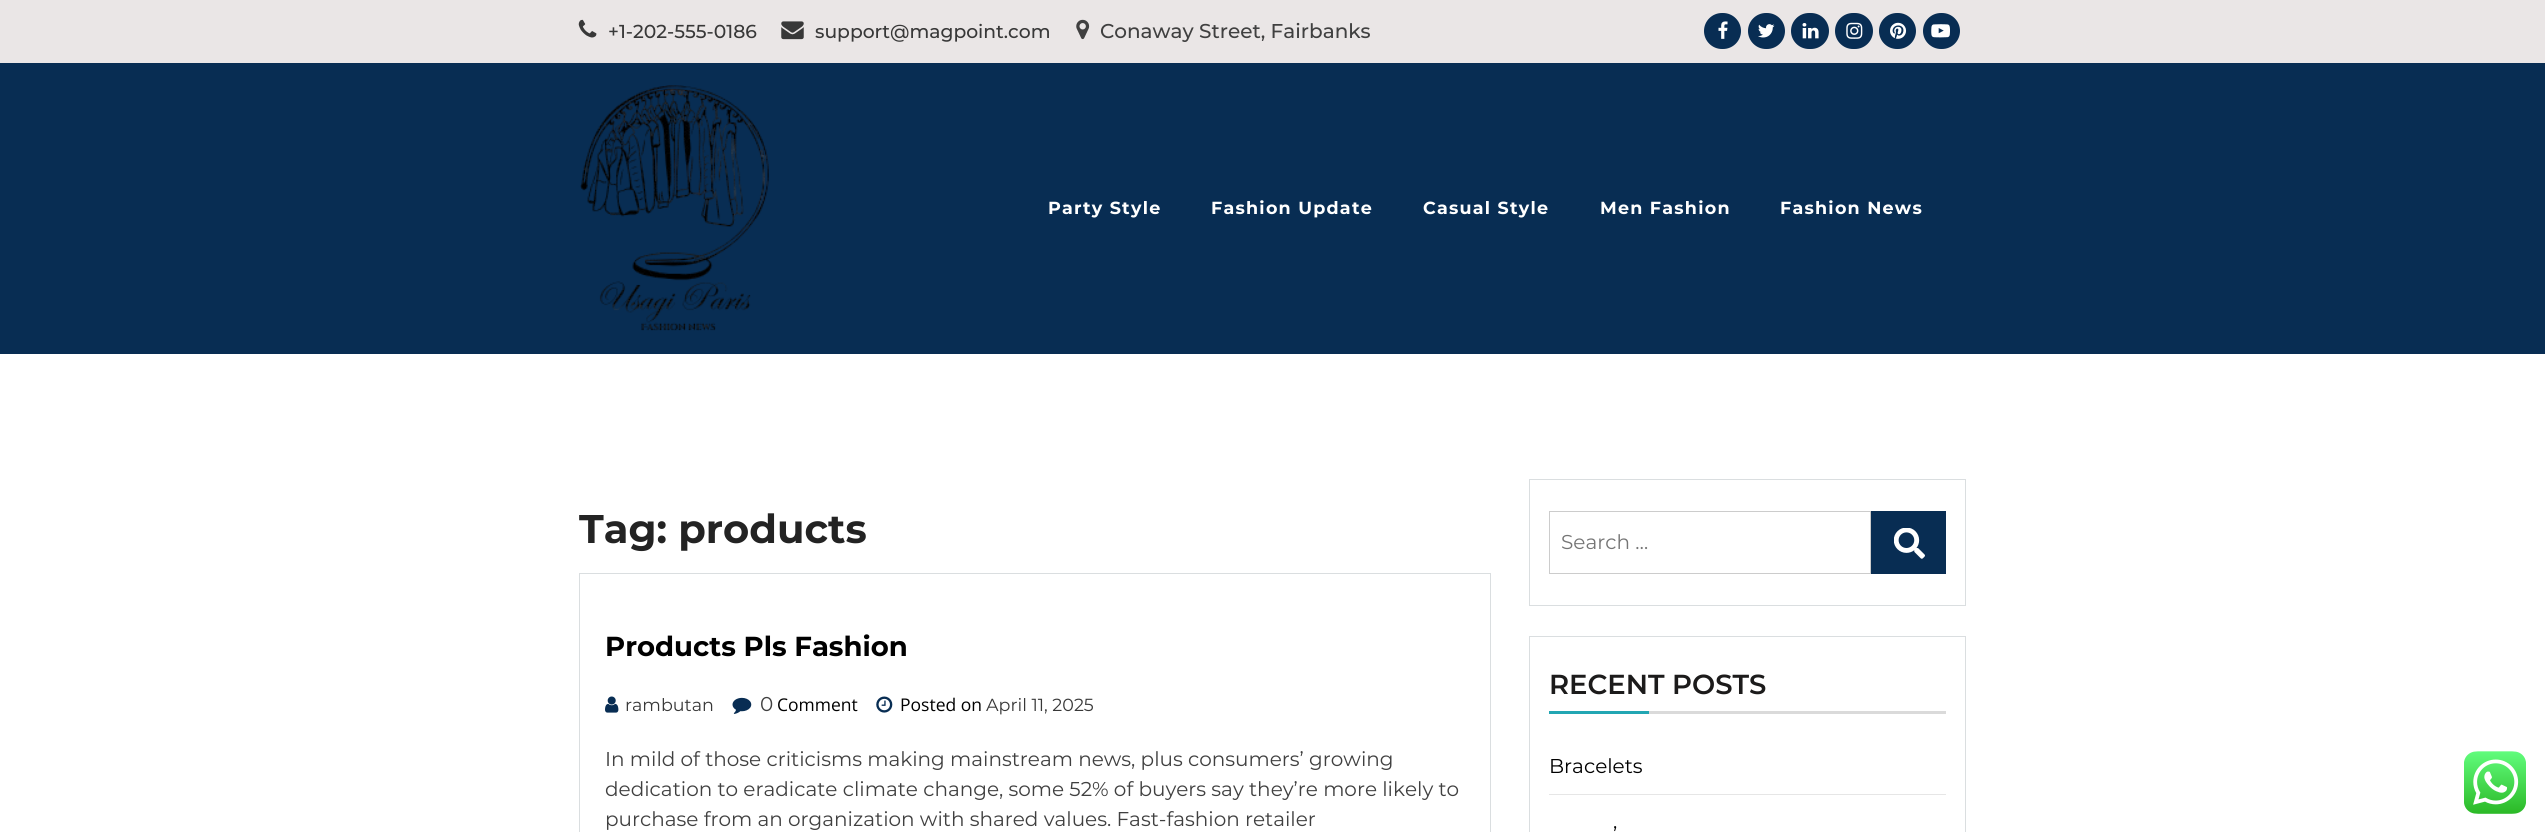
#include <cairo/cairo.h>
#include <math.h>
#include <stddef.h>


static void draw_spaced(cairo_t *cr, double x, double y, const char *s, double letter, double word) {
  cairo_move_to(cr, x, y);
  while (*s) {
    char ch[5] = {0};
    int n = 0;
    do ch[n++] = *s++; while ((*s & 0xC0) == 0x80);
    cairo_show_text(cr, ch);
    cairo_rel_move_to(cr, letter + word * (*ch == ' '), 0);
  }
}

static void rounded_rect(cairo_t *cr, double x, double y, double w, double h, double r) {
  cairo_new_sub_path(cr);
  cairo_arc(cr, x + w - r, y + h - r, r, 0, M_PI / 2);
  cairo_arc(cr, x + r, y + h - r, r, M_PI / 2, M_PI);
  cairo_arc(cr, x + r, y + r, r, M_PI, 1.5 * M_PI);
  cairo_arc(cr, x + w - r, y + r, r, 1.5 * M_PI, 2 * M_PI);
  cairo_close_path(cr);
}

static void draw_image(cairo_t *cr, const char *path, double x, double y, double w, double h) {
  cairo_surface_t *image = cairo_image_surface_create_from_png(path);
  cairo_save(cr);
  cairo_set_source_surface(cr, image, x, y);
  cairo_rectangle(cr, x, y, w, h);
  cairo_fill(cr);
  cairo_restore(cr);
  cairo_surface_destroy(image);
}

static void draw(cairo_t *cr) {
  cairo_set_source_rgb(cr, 1, 1, 1);
  cairo_paint(cr);
  cairo_set_source_rgb(cr, 234 / 255.0, 230 / 255.0, 230 / 255.0);
  cairo_rectangle(cr, 0, 0, 2545, 63);
  cairo_fill(cr);
  draw_image(cr, "images/1.png", 578, 19, 19, 19);
  draw_image(cr, "images/2.png", 781, 21, 23, 19);
  draw_image(cr, "images/3.png", 1076, 19, 14, 21);
  cairo_set_source_rgb(cr, 8 / 255.0, 45 / 255.0, 83 / 255.0);
  rounded_rect(cr, 1704, 13, 37, 36, 18);
  cairo_fill(cr);
  draw_image(cr, "images/4.png", 1718, 21, 10, 18);
  rounded_rect(cr, 1748, 13, 37, 36, 18);
  cairo_fill(cr);
  draw_image(cr, "images/5.png", 1758, 24, 17, 14);
  rounded_rect(cr, 1791, 13, 38, 36, 18);
  cairo_fill(cr);
  draw_image(cr, "images/6.png", 1802, 23, 17, 16);
  rounded_rect(cr, 1835, 13, 38, 36, 18);
  cairo_fill(cr);
  draw_image(cr, "images/7.png", 1846, 22, 17, 17);
  rounded_rect(cr, 1879, 13, 37, 36, 18);
  cairo_fill(cr);
  draw_image(cr, "images/8.png", 1890, 22, 17, 17);
  rounded_rect(cr, 1923, 13, 37, 36, 18);
  cairo_fill(cr);
  draw_image(cr, "images/9.png", 1931, 24, 19, 14);
  cairo_rectangle(cr, 0, 63, 2545, 291);
  cairo_fill(cr);
  draw_image(cr, "images/10.png", 580, 85, 189, 246);
  cairo_rectangle(cr, 579.5, 573.5, 911, 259);
  cairo_set_source_rgb(cr, 218 / 255.0, 222 / 255.0, 224 / 255.0);
  cairo_set_line_width(cr, 1);
  cairo_stroke(cr);
  draw_image(cr, "images/11.png", 605, 696, 14, 17);
  draw_image(cr, "images/12.png", 732, 697, 20, 17);
  draw_image(cr, "images/13.png", 876, 696, 17, 17);
  cairo_rectangle(cr, 1529.5, 479.5, 436, 126);
  cairo_stroke(cr);
  cairo_rectangle(cr, 1549.5, 511.5, 321, 62);
  cairo_set_source_rgb(cr, 204 / 255.0, 204 / 255.0, 204 / 255.0);
  cairo_stroke(cr);
  cairo_set_source_rgb(cr, 8 / 255.0, 45 / 255.0, 83 / 255.0);
  cairo_rectangle(cr, 1871, 511, 75, 63);
  cairo_fill(cr);
  draw_image(cr, "images/14.png", 1894, 528, 31, 31);
  cairo_rectangle(cr, 1529.5, 636.5, 436, 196);
  cairo_set_source_rgb(cr, 218 / 255.0, 222 / 255.0, 224 / 255.0);
  cairo_stroke(cr);
  cairo_set_source_rgb(cr, 218 / 255.0, 218 / 255.0, 218 / 255.0);
  cairo_rectangle(cr, 1649, 711, 297, 3);
  cairo_fill(cr);
  cairo_set_source_rgb(cr, 34 / 255.0, 166 / 255.0, 179 / 255.0);
  cairo_rectangle(cr, 1549, 711, 100, 3);
  cairo_fill(cr);
  cairo_set_source_rgb(cr, 230 / 255.0, 230 / 255.0, 230 / 255.0);
  cairo_rectangle(cr, 1549, 794, 397, 1);
  cairo_fill(cr);
  draw_image(cr, "images/15.png", 2464, 751, 62, 63);
  cairo_select_font_face(cr, "Montserrat Medium", CAIRO_FONT_SLANT_NORMAL, CAIRO_FONT_WEIGHT_NORMAL);
  cairo_set_font_size(cr, 18.75);
  cairo_set_source_rgb(cr, 56 / 255.0, 56 / 255.0, 56 / 255.0);
  cairo_move_to(cr, 608, 38);
  cairo_show_text(cr, "+1-202-555-0186");
  cairo_move_to(cr, 815, 38);
  cairo_show_text(cr, "support@magpoint.com");
  cairo_set_font_size(cr, 20);
  cairo_set_source_rgb(cr, 64 / 255.0, 64 / 255.0, 64 / 255.0);
  cairo_move_to(cr, 1100, 38);
  cairo_show_text(cr, "Conaway Street, Fairbanks");
  cairo_select_font_face(cr, "Montserrat", CAIRO_FONT_SLANT_NORMAL, CAIRO_FONT_WEIGHT_BOLD);
  cairo_set_font_size(cr, 17.5);
  cairo_set_source_rgb(cr, 1, 1, 1);
  draw_spaced(cr, 1048, 214, "Party Style", 1.25, 0);
  draw_spaced(cr, 1211, 214, "Fashion Update", 1.25, 0);
  draw_spaced(cr, 1423, 214, "Casual Style", 1.25, 0);
  draw_spaced(cr, 1600, 214, "Men Fashion", 1.25, 0);
  draw_spaced(cr, 1780, 214, "Fashion News", 1.25, 0);
  cairo_set_font_size(cr, 40);
  cairo_set_source_rgb(cr, 35 / 255.0, 35 / 255.0, 35 / 255.0);
  cairo_move_to(cr, 579, 543);
  cairo_show_text(cr, "Tag: products");
  cairo_set_font_size(cr, 27.5);
  cairo_set_source_rgb(cr, 0, 0, 0);
  cairo_move_to(cr, 605, 656);
  cairo_show_text(cr, "Products Pls Fashion");
  cairo_select_font_face(cr, "Montserrat", CAIRO_FONT_SLANT_NORMAL, CAIRO_FONT_WEIGHT_NORMAL);
  cairo_set_font_size(cr, 17.5);
  cairo_set_source_rgb(cr, 56 / 255.0, 56 / 255.0, 56 / 255.0);
  cairo_move_to(cr, 625, 711);
  cairo_show_text(cr, "rambutan");
  cairo_set_font_size(cr, 20);
  cairo_set_source_rgb(cr, 64 / 255.0, 64 / 255.0, 64 / 255.0);
  cairo_move_to(cr, 760, 711);
  cairo_show_text(cr, "0");
  cairo_select_font_face(cr, "Open Sans", CAIRO_FONT_SLANT_NORMAL, CAIRO_FONT_WEIGHT_NORMAL);
  cairo_set_font_size(cr, 17.5);
  cairo_set_source_rgb(cr, 0, 0, 0);
  cairo_move_to(cr, 777, 711);
  cairo_show_text(cr, "Comment");
  cairo_move_to(cr, 900, 711);
  cairo_show_text(cr, "Posted on");
  cairo_select_font_face(cr, "Montserrat", CAIRO_FONT_SLANT_NORMAL, CAIRO_FONT_WEIGHT_NORMAL);
  cairo_set_source_rgb(cr, 56 / 255.0, 56 / 255.0, 56 / 255.0);
  cairo_move_to(cr, 986, 711);
  cairo_show_text(cr, "April 11, 2025");
  cairo_set_font_size(cr, 20);
  cairo_set_source_rgb(cr, 64 / 255.0, 64 / 255.0, 64 / 255.0);
  cairo_move_to(cr, 605, 766);
  cairo_show_text(cr, "In mild of those criticisms making mainstream news, plus consumers’ growing");
  cairo_move_to(cr, 605, 796);
  cairo_show_text(cr, "dedication to eradicate climate change, some 52% of buyers say they’re more likely to");
  cairo_move_to(cr, 605, 826);
  cairo_show_text(cr, "purchase from an organization with shared values. Fast-fashion retailer");
  cairo_set_source_rgb(cr, 117 / 255.0, 117 / 255.0, 117 / 255.0);
  cairo_move_to(cr, 1561, 549);
  cairo_show_text(cr, "Search …");
  cairo_select_font_face(cr, "Montserrat SemiBold", CAIRO_FONT_SLANT_NORMAL, CAIRO_FONT_WEIGHT_NORMAL);
  cairo_set_font_size(cr, 27.5);
  cairo_set_source_rgb(cr, 28 / 255.0, 27 / 255.0, 27 / 255.0);
  cairo_move_to(cr, 1549, 694);
  cairo_show_text(cr, "RECENT POSTS");
  cairo_select_font_face(cr, "Montserrat", CAIRO_FONT_SLANT_NORMAL, CAIRO_FONT_WEIGHT_NORMAL);
  cairo_set_font_size(cr, 20);
  cairo_set_source_rgb(cr, 0, 0, 0);
  cairo_move_to(cr, 1549, 773);
  cairo_show_text(cr, "Bracelets");
  cairo_move_to(cr, 1613, 841);
  cairo_show_text(cr, "’");
}

int main(void) {
  cairo_surface_t *surface = cairo_image_surface_create(CAIRO_FORMAT_RGB24, 2545, 832);
  cairo_t *cr = cairo_create(surface);
  cairo_font_options_t *options = cairo_font_options_create();
  cairo_font_options_set_hint_metrics(options, CAIRO_HINT_METRICS_OFF);
  cairo_font_options_set_hint_style(options, CAIRO_HINT_STYLE_NONE);
  cairo_set_font_options(cr, options);
  cairo_set_miter_limit(cr, 4);
  draw(cr);
  cairo_surface_write_to_png(surface, "out.png");
  cairo_font_options_destroy(options);
  cairo_destroy(cr);
  cairo_surface_destroy(surface);
  return 0;
}
